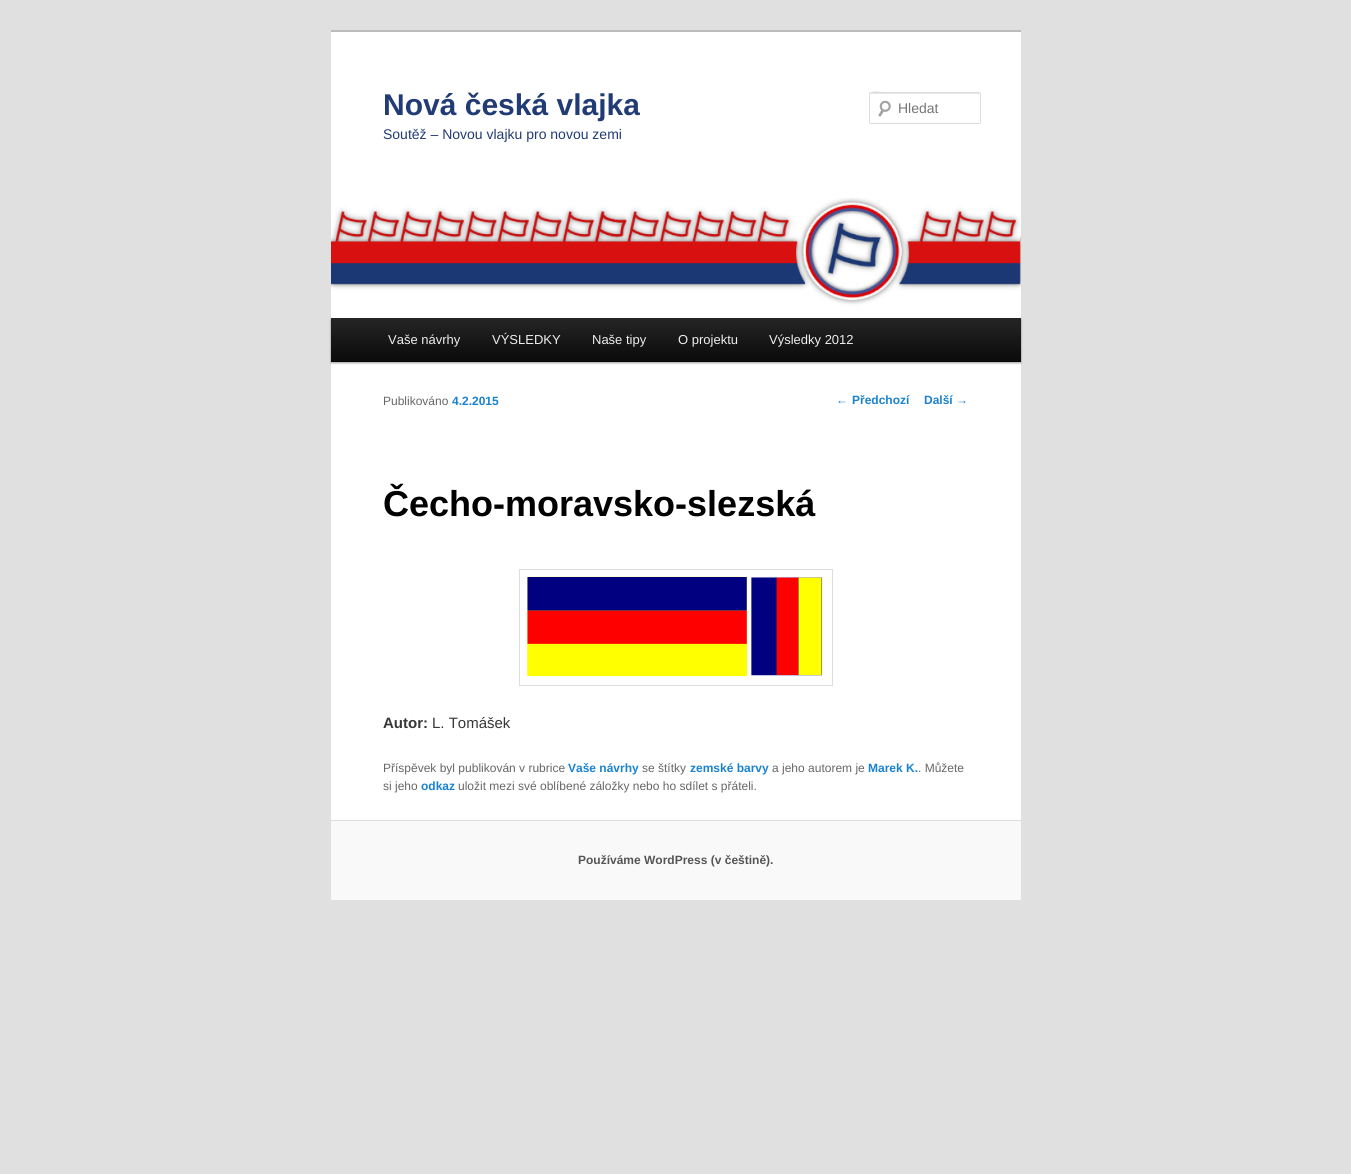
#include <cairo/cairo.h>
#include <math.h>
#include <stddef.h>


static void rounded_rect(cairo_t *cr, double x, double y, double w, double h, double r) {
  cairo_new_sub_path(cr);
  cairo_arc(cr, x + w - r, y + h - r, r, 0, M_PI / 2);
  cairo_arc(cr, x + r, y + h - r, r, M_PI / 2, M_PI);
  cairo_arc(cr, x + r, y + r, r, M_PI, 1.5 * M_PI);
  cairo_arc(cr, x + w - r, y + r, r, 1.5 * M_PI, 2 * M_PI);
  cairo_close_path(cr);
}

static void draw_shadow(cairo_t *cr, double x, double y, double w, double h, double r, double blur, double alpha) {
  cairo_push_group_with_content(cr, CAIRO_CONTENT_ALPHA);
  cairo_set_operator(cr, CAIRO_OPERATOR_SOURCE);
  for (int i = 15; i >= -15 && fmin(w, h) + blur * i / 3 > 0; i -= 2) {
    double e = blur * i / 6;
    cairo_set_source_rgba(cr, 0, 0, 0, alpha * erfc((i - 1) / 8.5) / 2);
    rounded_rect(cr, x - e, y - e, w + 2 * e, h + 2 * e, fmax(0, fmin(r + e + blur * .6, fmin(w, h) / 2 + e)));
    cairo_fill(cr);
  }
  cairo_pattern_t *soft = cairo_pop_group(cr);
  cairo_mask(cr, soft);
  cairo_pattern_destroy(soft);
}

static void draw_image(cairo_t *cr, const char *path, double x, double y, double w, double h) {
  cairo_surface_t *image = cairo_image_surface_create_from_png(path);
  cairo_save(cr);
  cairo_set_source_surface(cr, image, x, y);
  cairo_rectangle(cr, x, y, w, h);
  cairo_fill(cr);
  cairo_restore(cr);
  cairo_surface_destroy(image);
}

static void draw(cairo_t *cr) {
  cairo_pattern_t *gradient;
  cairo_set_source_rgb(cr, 224 / 255.0, 224 / 255.0, 224 / 255.0);
  cairo_paint(cr);
  cairo_set_source_rgb(cr, 1, 1, 1);
  cairo_rectangle(cr, 331, 32, 690, 788);
  cairo_fill(cr);
  cairo_set_source_rgb(cr, 187 / 255.0, 187 / 255.0, 187 / 255.0);
  cairo_rectangle(cr, 331, 30, 690, 2);
  cairo_fill(cr);
  draw_image(cr, "images/1.png", 878, 100, 13, 17);
  cairo_set_source_rgb(cr, 230 / 255.0, 230 / 255.0, 230 / 255.0);
  cairo_new_path(cr);
  cairo_move_to(cr, 871, 94);
  cairo_line_to(cr, 980, 94);
  cairo_line_to(cr, 980, 95);
  cairo_line_to(cr, 979, 93);
  cairo_line_to(cr, 889, 93);
  cairo_curve_to(cr, 885, 93, 870, 88, 870, 95);
  cairo_curve_to(cr, 870, 94, 870, 94, 871, 94);
  cairo_close_path(cr);
  cairo_fill(cr);
  rounded_rect(cr, 869.5, 92.5, 111, 31, 1.5);
  cairo_set_source_rgb(cr, 221 / 255.0, 221 / 255.0, 221 / 255.0);
  cairo_set_line_width(cr, 1);
  cairo_stroke(cr);
  cairo_set_source_rgb(cr, 0, 0, 0);
  draw_shadow(cr, 331, 319, 690, 44, 0, 1, 0.4);
  draw_image(cr, "images/2.png", 331, 197, 690, 121);
  gradient = cairo_pattern_create_linear(676, 318, 676, 362);
  cairo_pattern_add_color_stop_rgba(gradient, 0, 37 / 255.0, 37 / 255.0, 37 / 255.0, 1);
  cairo_pattern_add_color_stop_rgba(gradient, 1, 10 / 255.0, 10 / 255.0, 10 / 255.0, 1);
  cairo_set_source(cr, gradient);
  cairo_pattern_destroy(gradient);
  cairo_rectangle(cr, 331, 318, 690, 44);
  cairo_fill(cr);
  cairo_rectangle(cr, 519.5, 569.5, 313, 116);
  cairo_set_source_rgb(cr, 221 / 255.0, 221 / 255.0, 221 / 255.0);
  cairo_stroke(cr);
  draw_image(cr, "images/3.png", 527, 576, 296, 101);
  cairo_set_source_rgb(cr, 249 / 255.0, 249 / 255.0, 249 / 255.0);
  cairo_rectangle(cr, 331, 821, 690, 79);
  cairo_fill(cr);
  cairo_set_source_rgb(cr, 221 / 255.0, 221 / 255.0, 221 / 255.0);
  cairo_rectangle(cr, 331, 820, 690, 1);
  cairo_fill(cr);
  cairo_select_font_face(cr, "Liberation Sans", CAIRO_FONT_SLANT_NORMAL, CAIRO_FONT_WEIGHT_BOLD);
  cairo_set_font_size(cr, 30);
  cairo_set_source_rgb(cr, 33 / 255.0, 59 / 255.0, 116 / 255.0);
  cairo_move_to(cr, 383, 115);
  cairo_show_text(cr, "Nová česká vlajka");
  cairo_select_font_face(cr, "Liberation Sans", CAIRO_FONT_SLANT_NORMAL, CAIRO_FONT_WEIGHT_NORMAL);
  cairo_set_font_size(cr, 14);
  cairo_move_to(cr, 383, 139);
  cairo_show_text(cr, "Soutěž – Novou vlajku pro novou zemi");
  cairo_set_source_rgb(cr, 117 / 255.0, 117 / 255.0, 117 / 255.0);
  cairo_move_to(cr, 898, 113);
  cairo_show_text(cr, "Hledat");
  cairo_set_font_size(cr, 13);
  cairo_set_source_rgb(cr, 238 / 255.0, 238 / 255.0, 238 / 255.0);
  cairo_move_to(cr, 388, 344);
  cairo_show_text(cr, "Vaše návrhy");
  cairo_move_to(cr, 492, 344);
  cairo_show_text(cr, "VÝSLEDKY");
  cairo_move_to(cr, 592, 344);
  cairo_show_text(cr, "Naše tipy");
  cairo_move_to(cr, 678, 344);
  cairo_show_text(cr, "O projektu");
  cairo_move_to(cr, 769, 344);
  cairo_show_text(cr, "Výsledky 2012");
  cairo_set_font_size(cr, 12);
  cairo_set_source_rgb(cr, 25 / 255.0, 130 / 255.0, 209 / 255.0);
  cairo_move_to(cr, 836, 404);
  cairo_show_text(cr, "←");
  cairo_select_font_face(cr, "Liberation Sans", CAIRO_FONT_SLANT_NORMAL, CAIRO_FONT_WEIGHT_BOLD);
  cairo_move_to(cr, 852, 404);
  cairo_show_text(cr, "Předchozí");
  cairo_move_to(cr, 924, 404);
  cairo_show_text(cr, "Další");
  cairo_select_font_face(cr, "Liberation Sans", CAIRO_FONT_SLANT_NORMAL, CAIRO_FONT_WEIGHT_NORMAL);
  cairo_move_to(cr, 956, 404);
  cairo_show_text(cr, "→");
  cairo_set_source_rgb(cr, 102 / 255.0, 102 / 255.0, 102 / 255.0);
  cairo_move_to(cr, 383, 405);
  cairo_show_text(cr, "Publikováno");
  cairo_select_font_face(cr, "Liberation Sans", CAIRO_FONT_SLANT_NORMAL, CAIRO_FONT_WEIGHT_BOLD);
  cairo_set_source_rgb(cr, 25 / 255.0, 130 / 255.0, 209 / 255.0);
  cairo_move_to(cr, 452, 405);
  cairo_show_text(cr, "4.2.2015");
  cairo_set_font_size(cr, 36);
  cairo_set_source_rgb(cr, 0, 0, 0);
  cairo_move_to(cr, 383, 516);
  cairo_show_text(cr, "Čecho-moravsko-slezská");
  cairo_set_font_size(cr, 15);
  cairo_set_source_rgb(cr, 55 / 255.0, 55 / 255.0, 55 / 255.0);
  cairo_move_to(cr, 383, 728);
  cairo_show_text(cr, "Autor:");
  cairo_select_font_face(cr, "Liberation Sans", CAIRO_FONT_SLANT_NORMAL, CAIRO_FONT_WEIGHT_NORMAL);
  cairo_move_to(cr, 432, 728);
  cairo_show_text(cr, "L. Tomášek");
  cairo_set_font_size(cr, 12);
  cairo_set_source_rgb(cr, 102 / 255.0, 102 / 255.0, 102 / 255.0);
  cairo_move_to(cr, 383, 772);
  cairo_show_text(cr, "Příspěvek byl publikován v rubrice");
  cairo_select_font_face(cr, "Liberation Sans", CAIRO_FONT_SLANT_NORMAL, CAIRO_FONT_WEIGHT_BOLD);
  cairo_set_source_rgb(cr, 25 / 255.0, 130 / 255.0, 209 / 255.0);
  cairo_move_to(cr, 568, 772);
  cairo_show_text(cr, "Vaše návrhy");
  cairo_select_font_face(cr, "Liberation Sans", CAIRO_FONT_SLANT_NORMAL, CAIRO_FONT_WEIGHT_NORMAL);
  cairo_set_source_rgb(cr, 102 / 255.0, 102 / 255.0, 102 / 255.0);
  cairo_move_to(cr, 642, 772);
  cairo_show_text(cr, "se štítky");
  cairo_select_font_face(cr, "Liberation Sans", CAIRO_FONT_SLANT_NORMAL, CAIRO_FONT_WEIGHT_BOLD);
  cairo_set_source_rgb(cr, 25 / 255.0, 130 / 255.0, 209 / 255.0);
  cairo_move_to(cr, 690, 772);
  cairo_show_text(cr, "zemské barvy");
  cairo_select_font_face(cr, "Liberation Sans", CAIRO_FONT_SLANT_NORMAL, CAIRO_FONT_WEIGHT_NORMAL);
  cairo_set_source_rgb(cr, 102 / 255.0, 102 / 255.0, 102 / 255.0);
  cairo_move_to(cr, 772, 772);
  cairo_show_text(cr, "a jeho autorem je");
  cairo_select_font_face(cr, "Liberation Sans", CAIRO_FONT_SLANT_NORMAL, CAIRO_FONT_WEIGHT_BOLD);
  cairo_set_source_rgb(cr, 25 / 255.0, 130 / 255.0, 209 / 255.0);
  cairo_move_to(cr, 868, 772);
  cairo_show_text(cr, "Marek K.");
  cairo_select_font_face(cr, "Liberation Sans", CAIRO_FONT_SLANT_NORMAL, CAIRO_FONT_WEIGHT_NORMAL);
  cairo_set_source_rgb(cr, 102 / 255.0, 102 / 255.0, 102 / 255.0);
  cairo_move_to(cr, 918, 772);
  cairo_show_text(cr, ". Můžete");
  cairo_move_to(cr, 383, 790);
  cairo_show_text(cr, "si jeho");
  cairo_select_font_face(cr, "Liberation Sans", CAIRO_FONT_SLANT_NORMAL, CAIRO_FONT_WEIGHT_BOLD);
  cairo_set_source_rgb(cr, 25 / 255.0, 130 / 255.0, 209 / 255.0);
  cairo_move_to(cr, 421, 790);
  cairo_show_text(cr, "odkaz");
  cairo_select_font_face(cr, "Liberation Sans", CAIRO_FONT_SLANT_NORMAL, CAIRO_FONT_WEIGHT_NORMAL);
  cairo_set_source_rgb(cr, 102 / 255.0, 102 / 255.0, 102 / 255.0);
  cairo_move_to(cr, 458, 790);
  cairo_show_text(cr, "uložit mezi své oblíbené záložky nebo ho sdílet s přáteli.");
  cairo_select_font_face(cr, "Liberation Sans", CAIRO_FONT_SLANT_NORMAL, CAIRO_FONT_WEIGHT_BOLD);
  cairo_set_source_rgb(cr, 85 / 255.0, 85 / 255.0, 85 / 255.0);
  cairo_move_to(cr, 578, 864);
  cairo_show_text(cr, "Používáme WordPress (v češtině).");
}

int main(void) {
  cairo_surface_t *surface = cairo_image_surface_create(CAIRO_FORMAT_RGB24, 1351, 1174);
  cairo_t *cr = cairo_create(surface);
  cairo_font_options_t *options = cairo_font_options_create();
  cairo_font_options_set_hint_metrics(options, CAIRO_HINT_METRICS_OFF);
  cairo_font_options_set_hint_style(options, CAIRO_HINT_STYLE_NONE);
  cairo_set_font_options(cr, options);
  cairo_set_miter_limit(cr, 4);
  draw(cr);
  cairo_surface_write_to_png(surface, "out.png");
  cairo_font_options_destroy(options);
  cairo_destroy(cr);
  cairo_surface_destroy(surface);
  return 0;
}
